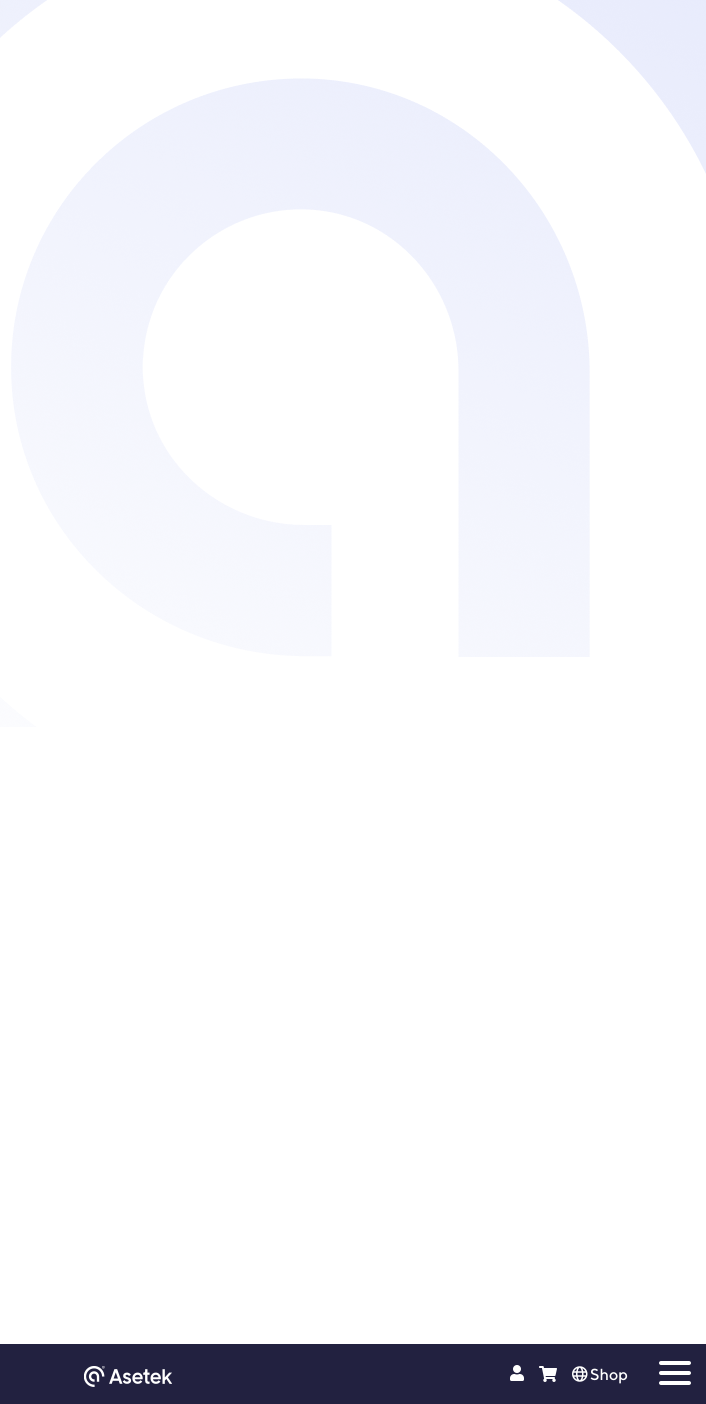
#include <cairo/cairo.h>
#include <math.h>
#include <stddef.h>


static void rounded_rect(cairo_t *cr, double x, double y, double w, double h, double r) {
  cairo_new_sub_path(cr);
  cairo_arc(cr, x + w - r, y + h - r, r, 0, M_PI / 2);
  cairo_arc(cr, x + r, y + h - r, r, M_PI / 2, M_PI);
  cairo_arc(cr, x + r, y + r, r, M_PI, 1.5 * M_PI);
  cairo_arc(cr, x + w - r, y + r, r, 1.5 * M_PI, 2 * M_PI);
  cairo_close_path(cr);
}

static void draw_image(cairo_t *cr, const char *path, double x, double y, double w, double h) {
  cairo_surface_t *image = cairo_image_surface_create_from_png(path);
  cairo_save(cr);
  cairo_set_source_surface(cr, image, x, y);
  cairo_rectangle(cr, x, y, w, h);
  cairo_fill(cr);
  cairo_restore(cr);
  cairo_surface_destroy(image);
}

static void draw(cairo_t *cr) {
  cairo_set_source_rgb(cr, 1, 1, 1);
  cairo_paint(cr);
  draw_image(cr, "images/1.png", 0, 0, 706, 727);
  cairo_set_source_rgb(cr, 34 / 255.0, 33 / 255.0, 64 / 255.0);
  cairo_rectangle(cr, 0, 1344, 706, 60);
  cairo_fill(cr);
  draw_image(cr, "images/2.png", 84, 1366, 88, 21);
  draw_image(cr, "images/3.png", 510, 1365, 14, 16);
  draw_image(cr, "images/4.png", 539, 1366, 18, 16);
  draw_image(cr, "images/5.png", 572, 1366, 16, 16);
  cairo_set_source_rgb(cr, 1, 1, 1);
  rounded_rect(cr, 659, 1381, 32, 4, 2);
  cairo_fill(cr);
  rounded_rect(cr, 659, 1361, 32, 4, 2);
  cairo_fill(cr);
  rounded_rect(cr, 659, 1371, 32, 4, 2);
  cairo_fill(cr);
  cairo_select_font_face(cr, "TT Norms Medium", CAIRO_FONT_SLANT_NORMAL, CAIRO_FONT_WEIGHT_NORMAL);
  cairo_set_font_size(cr, 16);
  cairo_move_to(cr, 590, 1380);
  cairo_show_text(cr, "Shop");
}

int main(void) {
  cairo_surface_t *surface = cairo_image_surface_create(CAIRO_FORMAT_RGB24, 706, 1404);
  cairo_t *cr = cairo_create(surface);
  cairo_font_options_t *options = cairo_font_options_create();
  cairo_font_options_set_hint_metrics(options, CAIRO_HINT_METRICS_OFF);
  cairo_font_options_set_hint_style(options, CAIRO_HINT_STYLE_NONE);
  cairo_set_font_options(cr, options);
  cairo_set_miter_limit(cr, 4);
  draw(cr);
  cairo_surface_write_to_png(surface, "out.png");
  cairo_font_options_destroy(options);
  cairo_destroy(cr);
  cairo_surface_destroy(surface);
  return 0;
}
